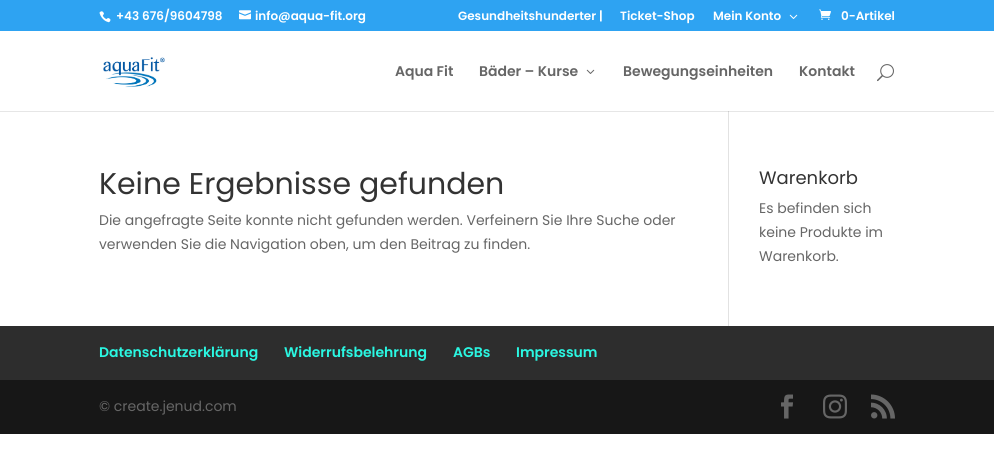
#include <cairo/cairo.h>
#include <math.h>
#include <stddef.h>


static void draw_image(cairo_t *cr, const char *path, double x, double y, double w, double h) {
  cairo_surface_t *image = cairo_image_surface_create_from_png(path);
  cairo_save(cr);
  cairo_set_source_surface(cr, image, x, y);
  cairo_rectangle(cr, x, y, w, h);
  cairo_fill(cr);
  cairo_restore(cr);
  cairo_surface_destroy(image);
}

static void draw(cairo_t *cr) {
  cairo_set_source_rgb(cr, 1, 1, 1);
  cairo_paint(cr);
  cairo_set_source_rgb(cr, 230 / 255.0, 230 / 255.0, 230 / 255.0);
  cairo_rectangle(cr, 0, 111, 994, 1);
  cairo_fill(cr);
  cairo_set_source_rgb(cr, 46 / 255.0, 163 / 255.0, 242 / 255.0);
  cairo_rectangle(cr, 0, 0, 994, 31);
  cairo_fill(cr);
  draw_image(cr, "images/1.png", 99, 11, 12, 12);
  draw_image(cr, "images/2.png", 239, 10, 12, 10);
  draw_image(cr, "images/3.png", 789, 14, 9, 5);
  draw_image(cr, "images/4.png", 819, 9, 12, 11);
  draw_image(cr, "images/5.png", 103, 57, 62, 31);
  draw_image(cr, "images/6.png", 586, 69, 9, 5);
  draw_image(cr, "images/7.png", 877, 64, 17, 18);
  cairo_set_source_rgb(cr, 226 / 255.0, 226 / 255.0, 226 / 255.0);
  cairo_rectangle(cr, 728, 111, 1, 215);
  cairo_fill(cr);
  cairo_set_source_rgb(cr, 203 / 255.0, 203 / 255.0, 203 / 255.0);
  cairo_rectangle(cr, 728, 111, 1, 1);
  cairo_fill(cr);
  cairo_set_source_rgb(cr, 45 / 255.0, 45 / 255.0, 45 / 255.0);
  cairo_rectangle(cr, 0, 326, 994, 54);
  cairo_fill(cr);
  cairo_set_source_rgb(cr, 23 / 255.0, 23 / 255.0, 23 / 255.0);
  cairo_rectangle(cr, 0, 380, 994, 54);
  cairo_fill(cr);
  draw_image(cr, "images/8.png", 781, 394, 12, 25);
  draw_image(cr, "images/9.png", 823, 394, 24, 25);
  draw_image(cr, "images/10.png", 871, 394, 24, 25);
  cairo_select_font_face(cr, "Poppins SemiBold", CAIRO_FONT_SLANT_NORMAL, CAIRO_FONT_WEIGHT_NORMAL);
  cairo_set_font_size(cr, 12);
  cairo_set_source_rgb(cr, 1, 1, 1);
  cairo_move_to(cr, 116, 20);
  cairo_show_text(cr, "+43 676/9604798");
  cairo_move_to(cr, 255, 20);
  cairo_show_text(cr, "info@aqua-fit.org");
  cairo_move_to(cr, 458, 20);
  cairo_show_text(cr, "Gesundheitshunderter |");
  cairo_move_to(cr, 620, 20);
  cairo_show_text(cr, "Ticket-Shop");
  cairo_move_to(cr, 713, 20);
  cairo_show_text(cr, "Mein Konto");
  cairo_move_to(cr, 841, 20);
  cairo_show_text(cr, "0-Artikel");
  cairo_set_font_size(cr, 14);
  cairo_set_source_rgb(cr, 102 / 255.0, 102 / 255.0, 102 / 255.0);
  cairo_move_to(cr, 395, 76);
  cairo_show_text(cr, "Aqua Fit");
  cairo_move_to(cr, 479, 76);
  cairo_show_text(cr, "Bäder – Kurse");
  cairo_move_to(cr, 623, 76);
  cairo_show_text(cr, "Bewegungseinheiten");
  cairo_move_to(cr, 799, 76);
  cairo_show_text(cr, "Kontakt");
  cairo_select_font_face(cr, "Poppins", CAIRO_FONT_SLANT_NORMAL, CAIRO_FONT_WEIGHT_NORMAL);
  cairo_set_font_size(cr, 30);
  cairo_set_source_rgb(cr, 51 / 255.0, 51 / 255.0, 51 / 255.0);
  cairo_move_to(cr, 99, 194);
  cairo_show_text(cr, "Keine Ergebnisse gefunden");
  cairo_set_font_size(cr, 14);
  cairo_set_source_rgb(cr, 102 / 255.0, 102 / 255.0, 102 / 255.0);
  cairo_move_to(cr, 99, 225);
  cairo_show_text(cr, "Die angefragte Seite konnte nicht gefunden werden. Verfeinern Sie Ihre Suche oder");
  cairo_move_to(cr, 99, 249);
  cairo_show_text(cr, "verwenden Sie die Navigation oben, um den Beitrag zu finden.");
  cairo_set_font_size(cr, 18);
  cairo_set_source_rgb(cr, 51 / 255.0, 51 / 255.0, 51 / 255.0);
  cairo_move_to(cr, 759, 184);
  cairo_show_text(cr, "Warenkorb");
  cairo_set_font_size(cr, 14);
  cairo_set_source_rgb(cr, 102 / 255.0, 102 / 255.0, 102 / 255.0);
  cairo_move_to(cr, 759, 213);
  cairo_show_text(cr, "Es befinden sich");
  cairo_move_to(cr, 759, 237);
  cairo_show_text(cr, "keine Produkte im");
  cairo_move_to(cr, 759, 261);
  cairo_show_text(cr, "Warenkorb.");
  cairo_select_font_face(cr, "Poppins SemiBold", CAIRO_FONT_SLANT_NORMAL, CAIRO_FONT_WEIGHT_NORMAL);
  cairo_set_source_rgb(cr, 42 / 255.0, 247 / 255.0, 226 / 255.0);
  cairo_move_to(cr, 99, 357);
  cairo_show_text(cr, "Datenschutzerklärung");
  cairo_move_to(cr, 284, 357);
  cairo_show_text(cr, "Widerrufsbelehrung");
  cairo_move_to(cr, 453, 357);
  cairo_show_text(cr, "AGBs");
  cairo_move_to(cr, 516, 357);
  cairo_show_text(cr, "Impressum");
  cairo_select_font_face(cr, "Poppins", CAIRO_FONT_SLANT_NORMAL, CAIRO_FONT_WEIGHT_NORMAL);
  cairo_set_source_rgb(cr, 102 / 255.0, 102 / 255.0, 102 / 255.0);
  cairo_move_to(cr, 99, 411);
  cairo_show_text(cr, "© create.jenud.com");
}

int main(void) {
  cairo_surface_t *surface = cairo_image_surface_create(CAIRO_FORMAT_RGB24, 994, 461);
  cairo_t *cr = cairo_create(surface);
  cairo_font_options_t *options = cairo_font_options_create();
  cairo_font_options_set_hint_metrics(options, CAIRO_HINT_METRICS_OFF);
  cairo_font_options_set_hint_style(options, CAIRO_HINT_STYLE_NONE);
  cairo_set_font_options(cr, options);
  cairo_set_miter_limit(cr, 4);
  draw(cr);
  cairo_surface_write_to_png(surface, "out.png");
  cairo_font_options_destroy(options);
  cairo_destroy(cr);
  cairo_surface_destroy(surface);
  return 0;
}
